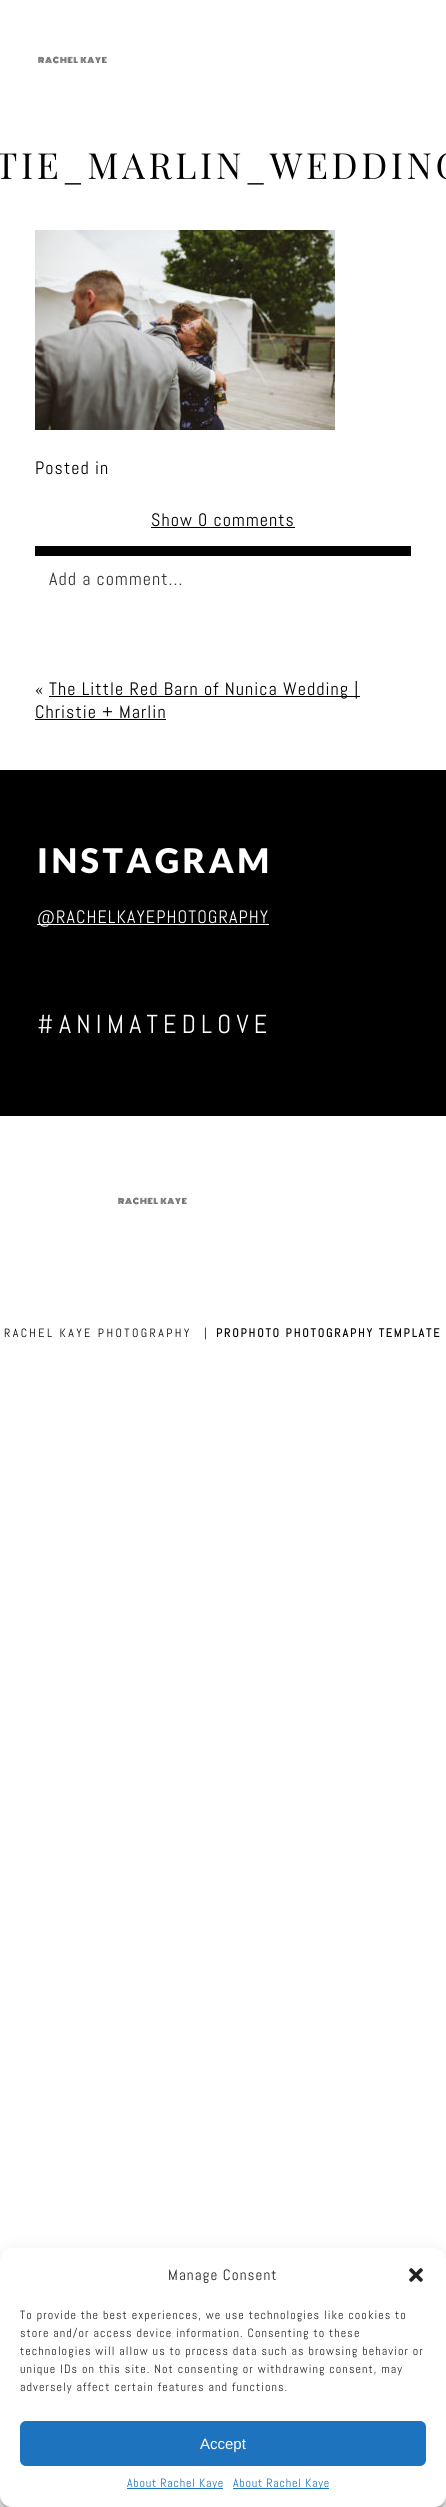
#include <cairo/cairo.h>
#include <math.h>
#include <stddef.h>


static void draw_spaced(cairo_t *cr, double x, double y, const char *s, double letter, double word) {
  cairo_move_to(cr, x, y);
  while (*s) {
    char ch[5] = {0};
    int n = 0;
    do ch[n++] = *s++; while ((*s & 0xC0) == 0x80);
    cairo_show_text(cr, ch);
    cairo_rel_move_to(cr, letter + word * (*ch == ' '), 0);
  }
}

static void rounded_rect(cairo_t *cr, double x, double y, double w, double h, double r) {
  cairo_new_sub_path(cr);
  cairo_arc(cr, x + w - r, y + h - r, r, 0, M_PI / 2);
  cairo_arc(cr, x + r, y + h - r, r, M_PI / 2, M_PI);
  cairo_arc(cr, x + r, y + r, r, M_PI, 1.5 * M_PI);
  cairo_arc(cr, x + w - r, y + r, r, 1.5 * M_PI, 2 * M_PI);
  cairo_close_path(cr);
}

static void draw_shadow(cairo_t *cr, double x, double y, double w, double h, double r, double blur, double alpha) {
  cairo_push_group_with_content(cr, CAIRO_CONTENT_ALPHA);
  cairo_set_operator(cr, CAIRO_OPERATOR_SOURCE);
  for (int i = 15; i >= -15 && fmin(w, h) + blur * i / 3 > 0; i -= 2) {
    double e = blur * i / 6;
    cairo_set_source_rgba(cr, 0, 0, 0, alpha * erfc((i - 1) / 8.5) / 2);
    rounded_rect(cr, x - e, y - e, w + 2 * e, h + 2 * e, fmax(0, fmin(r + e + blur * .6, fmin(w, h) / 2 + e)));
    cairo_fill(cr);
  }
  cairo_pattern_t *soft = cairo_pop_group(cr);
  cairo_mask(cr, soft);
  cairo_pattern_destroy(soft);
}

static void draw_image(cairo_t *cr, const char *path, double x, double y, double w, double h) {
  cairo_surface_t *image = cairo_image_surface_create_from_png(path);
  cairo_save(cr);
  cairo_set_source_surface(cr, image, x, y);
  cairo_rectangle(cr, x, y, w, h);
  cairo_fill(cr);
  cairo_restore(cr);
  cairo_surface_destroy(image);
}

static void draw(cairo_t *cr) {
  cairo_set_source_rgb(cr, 1, 1, 1);
  cairo_paint(cr);
  draw_image(cr, "images/1.png", 35, 230, 300, 200);
  cairo_set_source_rgb(cr, 0, 0, 0);
  cairo_rectangle(cr, 35, 546, 376, 10);
  cairo_fill(cr);
  cairo_rectangle(cr, 151, 527, 144, 1);
  cairo_fill(cr);
  cairo_rectangle(cr, 49, 696, 311, 1);
  cairo_fill(cr);
  cairo_rectangle(cr, 35, 719, 131, 1);
  cairo_fill(cr);
  cairo_rectangle(cr, 0, 770, 446, 346);
  cairo_fill(cr);
  cairo_set_source_rgb(cr, 1, 1, 1);
  cairo_rectangle(cr, 37, 924, 232, 1);
  cairo_fill(cr);
  cairo_set_source_rgb(cr, 0, 0, 0);
  draw_shadow(cr, 0, 2254, 446, 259, 12, 3, 0.23);
  draw_shadow(cr, 0, 2258, 446, 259, 12, 10, 0.19);
  cairo_set_source_rgb(cr, 1, 1, 1);
  rounded_rect(cr, 0, 2248, 446, 259, 12);
  cairo_fill(cr);
  draw_image(cr, "images/2.png", 409, 2268, 14, 14);
  cairo_set_source_rgb(cr, 30 / 255.0, 115 / 255.0, 190 / 255.0);
  rounded_rect(cr, 20.5, 2421.5, 405, 44, 5.5);
  cairo_fill_preserve(cr);
  cairo_set_line_width(cr, 1);
  cairo_stroke(cr);
  cairo_rectangle(cr, 127, 2488, 96, 1);
  cairo_fill(cr);
  cairo_rectangle(cr, 233, 2488, 96, 1);
  cairo_fill(cr);
  cairo_select_font_face(cr, "Monoton", CAIRO_FONT_SLANT_NORMAL, CAIRO_FONT_WEIGHT_NORMAL);
  cairo_set_font_size(cr, 7.5);
  cairo_set_source_rgb(cr, 0, 0, 0);
  draw_spaced(cr, 38, 63, "RACHEL KAYE", 0.75, 0);
  cairo_select_font_face(cr, "Playfair Display", CAIRO_FONT_SLANT_NORMAL, CAIRO_FONT_WEIGHT_NORMAL);
  cairo_set_font_size(cr, 36);
  draw_spaced(cr, -5, 179, "TIE_MARLIN_WEDDING", 3.6, 0);
  cairo_select_font_face(cr, "Abel", CAIRO_FONT_SLANT_NORMAL, CAIRO_FONT_WEIGHT_NORMAL);
  cairo_set_font_size(cr, 18);
  draw_spaced(cr, 35, 474, "Posted in", 1.08, 0);
  draw_spaced(cr, 151, 526, "Show 0 comments", 1.08, 0);
  cairo_set_source_rgb(cr, 51 / 255.0, 51 / 255.0, 51 / 255.0);
  draw_spaced(cr, 49, 585, "Add a comment...", 1.08, 0);
  cairo_set_source_rgb(cr, 0, 0, 0);
  draw_spaced(cr, 35, 695, "«", 1.08, 0);
  draw_spaced(cr, 49, 695, "The Little Red Barn of Nunica Wedding |", 1.08, 0);
  draw_spaced(cr, 35, 718, "Christie + Marlin", 1.08, 0);
  cairo_select_font_face(cr, "Lato Black", CAIRO_FONT_SLANT_NORMAL, CAIRO_FONT_WEIGHT_NORMAL);
  cairo_set_font_size(cr, 34);
  cairo_set_source_rgb(cr, 1, 1, 1);
  draw_spaced(cr, 37, 873, "INSTAGRAM", 3.5, 0);
  cairo_select_font_face(cr, "Abel", CAIRO_FONT_SLANT_NORMAL, CAIRO_FONT_WEIGHT_NORMAL);
  cairo_set_font_size(cr, 18);
  draw_spaced(cr, 37, 923, "@RACHELKAYEPHOTOGRAPHY", 1.08, 0);
  cairo_set_font_size(cr, 26);
  draw_spaced(cr, 37, 1033, "#ANIMATEDLOVE", 5.25, 0);
  cairo_select_font_face(cr, "Monoton", CAIRO_FONT_SLANT_NORMAL, CAIRO_FONT_WEIGHT_NORMAL);
  cairo_set_font_size(cr, 7.5);
  cairo_set_source_rgb(cr, 0, 0, 0);
  draw_spaced(cr, 118, 1204, "RACHEL KAYE", 0.75, 0);
  cairo_select_font_face(cr, "Abel", CAIRO_FONT_SLANT_NORMAL, CAIRO_FONT_WEIGHT_NORMAL);
  cairo_set_font_size(cr, 12);
  draw_spaced(cr, 4, 1337, "RACHEL KAYE PHOTOGRAPHY", 2.4, 0);
  draw_spaced(cr, 204, 1337, "|", 2.4, 0);
  cairo_select_font_face(cr, "Abel", CAIRO_FONT_SLANT_NORMAL, CAIRO_FONT_WEIGHT_BOLD);
  draw_spaced(cr, 216, 1337, "PROPHOTO PHOTOGRAPHY TEMPLATE", 1.9, 0);
  cairo_select_font_face(cr, "Abel", CAIRO_FONT_SLANT_NORMAL, CAIRO_FONT_WEIGHT_NORMAL);
  cairo_set_font_size(cr, 15);
  cairo_set_source_rgb(cr, 34 / 255.0, 34 / 255.0, 34 / 255.0);
  draw_spaced(cr, 168, 2280, "Manage Consent", 1.08, 0);
  cairo_set_font_size(cr, 12);
  draw_spaced(cr, 20, 2319, "To provide the best experiences, we use technologies like cookies to", 1.08, 0);
  draw_spaced(cr, 20, 2337, "store and/or access device information. Consenting to these", 1.08, 0);
  draw_spaced(cr, 20, 2355, "technologies will allow us to process data such as browsing behavior or", 1.08, 0);
  draw_spaced(cr, 20, 2373, "unique IDs on this site. Not consenting or withdrawing consent, may", 1.08, 0);
  draw_spaced(cr, 20, 2391, "adversely affect certain features and functions.", 1.08, 0);
  cairo_select_font_face(cr, "Liberation Sans", CAIRO_FONT_SLANT_NORMAL, CAIRO_FONT_WEIGHT_NORMAL);
  cairo_set_font_size(cr, 15);
  cairo_set_source_rgb(cr, 1, 1, 1);
  cairo_move_to(cr, 200, 2449);
  cairo_show_text(cr, "Accept");
  cairo_select_font_face(cr, "Abel", CAIRO_FONT_SLANT_NORMAL, CAIRO_FONT_WEIGHT_NORMAL);
  cairo_set_font_size(cr, 12);
  cairo_set_source_rgb(cr, 30 / 255.0, 115 / 255.0, 190 / 255.0);
  draw_spaced(cr, 127, 2487, "About Rachel Kaye", 0.75, 0);
  draw_spaced(cr, 233, 2487, "About Rachel Kaye", 0.75, 0);
}

int main(void) {
  cairo_surface_t *surface = cairo_image_surface_create(CAIRO_FORMAT_RGB24, 446, 2507);
  cairo_t *cr = cairo_create(surface);
  cairo_font_options_t *options = cairo_font_options_create();
  cairo_font_options_set_hint_metrics(options, CAIRO_HINT_METRICS_OFF);
  cairo_font_options_set_hint_style(options, CAIRO_HINT_STYLE_NONE);
  cairo_set_font_options(cr, options);
  cairo_set_miter_limit(cr, 4);
  draw(cr);
  cairo_surface_write_to_png(surface, "out.png");
  cairo_font_options_destroy(options);
  cairo_destroy(cr);
  cairo_surface_destroy(surface);
  return 0;
}
